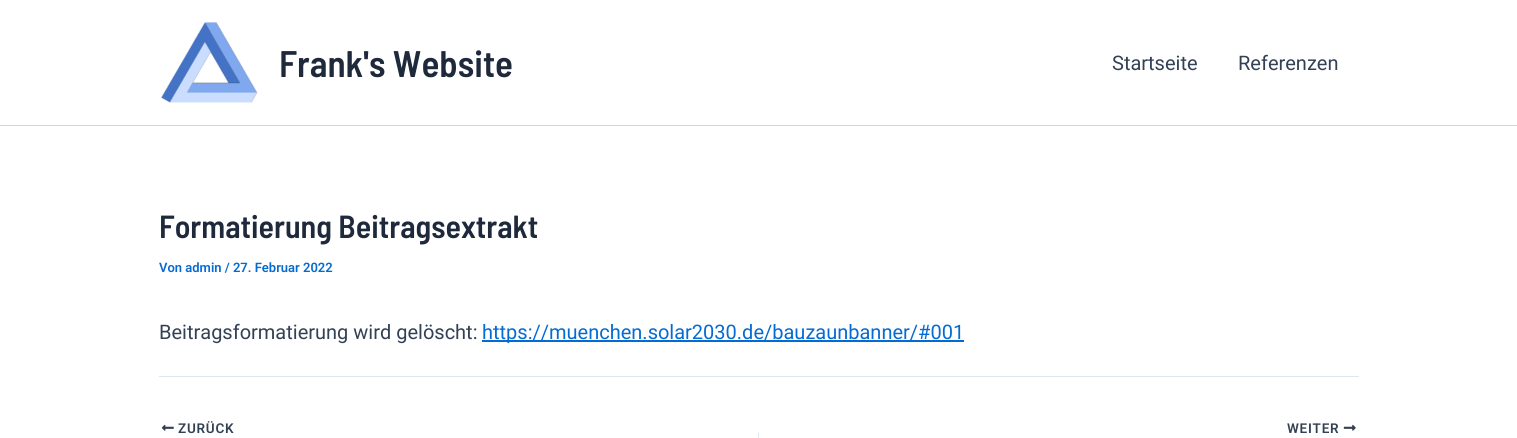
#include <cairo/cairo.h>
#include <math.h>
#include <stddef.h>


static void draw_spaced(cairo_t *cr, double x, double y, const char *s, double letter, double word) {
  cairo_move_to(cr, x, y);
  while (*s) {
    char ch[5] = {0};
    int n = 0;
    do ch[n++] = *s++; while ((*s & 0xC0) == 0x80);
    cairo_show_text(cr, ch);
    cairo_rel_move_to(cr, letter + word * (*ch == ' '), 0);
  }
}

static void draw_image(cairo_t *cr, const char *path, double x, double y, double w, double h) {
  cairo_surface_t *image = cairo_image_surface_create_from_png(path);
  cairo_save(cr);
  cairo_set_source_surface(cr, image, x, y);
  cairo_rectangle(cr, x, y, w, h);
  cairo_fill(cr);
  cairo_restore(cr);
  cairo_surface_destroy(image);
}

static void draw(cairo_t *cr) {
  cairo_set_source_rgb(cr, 1, 1, 1);
  cairo_paint(cr);
  cairo_set_source_rgb(cr, 209 / 255.0, 213 / 255.0, 219 / 255.0);
  cairo_rectangle(cr, 0, 125, 1517, 1);
  cairo_fill(cr);
  draw_image(cr, "images/1.png", 161, 22, 97, 81);
  cairo_set_source_rgb(cr, 4 / 255.0, 107 / 255.0, 210 / 255.0);
  cairo_rectangle(cr, 482, 340, 482, 2);
  cairo_fill(cr);
  cairo_set_source_rgb(cr, 225 / 255.0, 232 / 255.0, 237 / 255.0);
  cairo_rectangle(cr, 159, 376, 1200, 1);
  cairo_fill(cr);
  draw_image(cr, "images/2.png", 161, 424, 13, 7);
  cairo_rectangle(cr, 758, 433, 1, 5);
  cairo_fill(cr);
  draw_image(cr, "images/3.png", 1343, 424, 13, 7);
  cairo_select_font_face(cr, "Barlow Semi Condensed SemiBold", CAIRO_FONT_SLANT_NORMAL, CAIRO_FONT_WEIGHT_NORMAL);
  cairo_set_font_size(cr, 37);
  cairo_set_source_rgb(cr, 30 / 255.0, 41 / 255.0, 59 / 255.0);
  cairo_move_to(cr, 279, 77);
  cairo_show_text(cr, "Frank's Website");
  cairo_select_font_face(cr, "Roboto", CAIRO_FONT_SLANT_NORMAL, CAIRO_FONT_WEIGHT_NORMAL);
  cairo_set_font_size(cr, 20);
  cairo_set_source_rgb(cr, 51 / 255.0, 65 / 255.0, 85 / 255.0);
  cairo_move_to(cr, 1112, 70);
  cairo_show_text(cr, "Startseite");
  cairo_move_to(cr, 1238, 70);
  cairo_show_text(cr, "Referenzen");
  cairo_select_font_face(cr, "Barlow Semi Condensed SemiBold", CAIRO_FONT_SLANT_NORMAL, CAIRO_FONT_WEIGHT_NORMAL);
  cairo_set_font_size(cr, 32);
  cairo_set_source_rgb(cr, 30 / 255.0, 41 / 255.0, 59 / 255.0);
  cairo_move_to(cr, 159, 238);
  cairo_show_text(cr, "Formatierung Beitragsextrakt");
  cairo_select_font_face(cr, "Roboto SemiBold", CAIRO_FONT_SLANT_NORMAL, CAIRO_FONT_WEIGHT_NORMAL);
  cairo_set_font_size(cr, 13);
  cairo_set_source_rgb(cr, 4 / 255.0, 107 / 255.0, 210 / 255.0);
  cairo_move_to(cr, 159, 272);
  cairo_show_text(cr, "Von admin / 27. Februar 2022");
  cairo_select_font_face(cr, "Roboto", CAIRO_FONT_SLANT_NORMAL, CAIRO_FONT_WEIGHT_NORMAL);
  cairo_set_font_size(cr, 20);
  cairo_set_source_rgb(cr, 51 / 255.0, 65 / 255.0, 85 / 255.0);
  cairo_move_to(cr, 159, 339);
  cairo_show_text(cr, "Beitragsformatierung wird gelöscht:");
  cairo_set_source_rgb(cr, 4 / 255.0, 107 / 255.0, 210 / 255.0);
  cairo_move_to(cr, 482, 339);
  cairo_show_text(cr, "https://muenchen.solar2030.de/bauzaunbanner/#001");
  cairo_select_font_face(cr, "Roboto SemiBold", CAIRO_FONT_SLANT_NORMAL, CAIRO_FONT_WEIGHT_NORMAL);
  cairo_set_font_size(cr, 13.5);
  cairo_set_source_rgb(cr, 51 / 255.0, 65 / 255.0, 85 / 255.0);
  draw_spaced(cr, 178, 433, "ZURÜCK", 0.75, 0);
  draw_spaced(cr, 1287, 433, "WEITER", 0.75, 0);
}

int main(void) {
  cairo_surface_t *surface = cairo_image_surface_create(CAIRO_FORMAT_RGB24, 1517, 438);
  cairo_t *cr = cairo_create(surface);
  cairo_font_options_t *options = cairo_font_options_create();
  cairo_font_options_set_hint_metrics(options, CAIRO_HINT_METRICS_OFF);
  cairo_font_options_set_hint_style(options, CAIRO_HINT_STYLE_NONE);
  cairo_set_font_options(cr, options);
  cairo_set_miter_limit(cr, 4);
  draw(cr);
  cairo_surface_write_to_png(surface, "out.png");
  cairo_font_options_destroy(options);
  cairo_destroy(cr);
  cairo_surface_destroy(surface);
  return 0;
}
